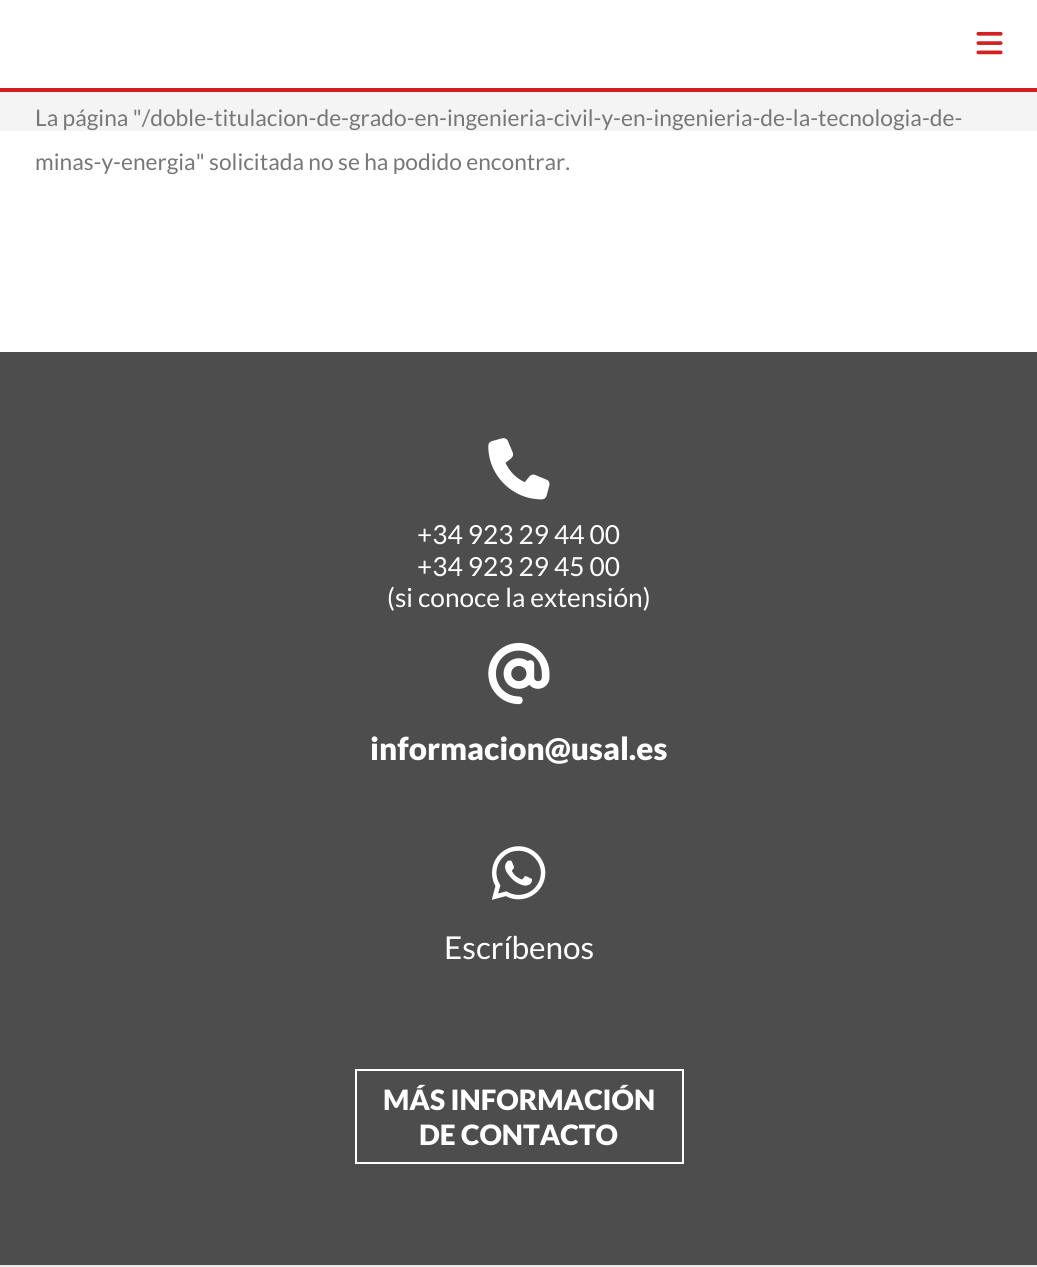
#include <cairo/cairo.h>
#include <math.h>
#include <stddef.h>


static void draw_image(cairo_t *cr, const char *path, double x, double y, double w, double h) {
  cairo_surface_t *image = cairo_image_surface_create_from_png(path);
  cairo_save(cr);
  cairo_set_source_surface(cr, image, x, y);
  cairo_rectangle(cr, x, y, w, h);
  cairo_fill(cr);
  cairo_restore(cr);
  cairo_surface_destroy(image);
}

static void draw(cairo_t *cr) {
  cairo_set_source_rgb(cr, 1, 1, 1);
  cairo_paint(cr);
  draw_image(cr, "images/1.png", 976, 31, 27, 24);
  cairo_set_source_rgb(cr, 210 / 255.0, 32 / 255.0, 32 / 255.0);
  cairo_rectangle(cr, 0, 88, 1037, 4);
  cairo_fill(cr);
  cairo_set_source_rgb(cr, 244 / 255.0, 244 / 255.0, 244 / 255.0);
  cairo_rectangle(cr, 0, 92, 1037, 39);
  cairo_fill(cr);
  cairo_set_source_rgb(cr, 77 / 255.0, 77 / 255.0, 77 / 255.0);
  cairo_rectangle(cr, 0, 352, 1037, 913);
  cairo_fill(cr);
  draw_image(cr, "images/2.png", 488, 438, 62, 62);
  draw_image(cr, "images/3.png", 488, 642, 62, 63);
  draw_image(cr, "images/4.png", 491, 846, 55, 54);
  cairo_rectangle(cr, 356, 1070, 327, 93);
  cairo_set_source_rgb(cr, 1, 1, 1);
  cairo_stroke(cr);
  cairo_set_source_rgb(cr, 234 / 255.0, 234 / 255.0, 234 / 255.0);
  cairo_rectangle(cr, 0, 1265, 1037, 2);
  cairo_fill(cr);
  cairo_select_font_face(cr, "Lato", CAIRO_FONT_SLANT_NORMAL, CAIRO_FONT_WEIGHT_NORMAL);
  cairo_set_font_size(cr, 22.75);
  cairo_set_source_rgb(cr, 119 / 255.0, 119 / 255.0, 119 / 255.0);
  cairo_move_to(cr, 35, 126);
  cairo_show_text(cr, "La página \"/doble-titulacion-de-grado-en-ingenieria-civil-y-en-ingenieria-de-la-tecnologia-de-");
  cairo_move_to(cr, 35, 170);
  cairo_show_text(cr, "minas-y-energia\" solicitada no se ha podido encontrar.");
  cairo_set_font_size(cr, 26.25);
  cairo_set_source_rgb(cr, 1, 1, 1);
  cairo_move_to(cr, 417, 544);
  cairo_show_text(cr, "+34 923 29 44 00");
  cairo_move_to(cr, 417, 576);
  cairo_show_text(cr, "+34 923 29 45 00");
  cairo_move_to(cr, 387, 607);
  cairo_show_text(cr, "(si conoce la extensión)");
  cairo_select_font_face(cr, "Lato Black", CAIRO_FONT_SLANT_NORMAL, CAIRO_FONT_WEIGHT_NORMAL);
  cairo_set_font_size(cr, 31.5);
  cairo_move_to(cr, 370, 760);
  cairo_show_text(cr, "informacion@usal.es");
  cairo_select_font_face(cr, "Lato", CAIRO_FONT_SLANT_NORMAL, CAIRO_FONT_WEIGHT_NORMAL);
  cairo_move_to(cr, 444, 959);
  cairo_show_text(cr, "Escríbenos");
  cairo_select_font_face(cr, "Lato Black", CAIRO_FONT_SLANT_NORMAL, CAIRO_FONT_WEIGHT_NORMAL);
  cairo_set_font_size(cr, 28);
  cairo_move_to(cr, 383, 1110);
  cairo_show_text(cr, "MÁS INFORMACIÓN");
  cairo_move_to(cr, 419, 1145);
  cairo_show_text(cr, "DE CONTACTO");
}

int main(void) {
  cairo_surface_t *surface = cairo_image_surface_create(CAIRO_FORMAT_RGB24, 1037, 1267);
  cairo_t *cr = cairo_create(surface);
  cairo_font_options_t *options = cairo_font_options_create();
  cairo_font_options_set_hint_metrics(options, CAIRO_HINT_METRICS_OFF);
  cairo_font_options_set_hint_style(options, CAIRO_HINT_STYLE_NONE);
  cairo_set_font_options(cr, options);
  cairo_set_miter_limit(cr, 4);
  draw(cr);
  cairo_surface_write_to_png(surface, "out.png");
  cairo_font_options_destroy(options);
  cairo_destroy(cr);
  cairo_surface_destroy(surface);
  return 0;
}
